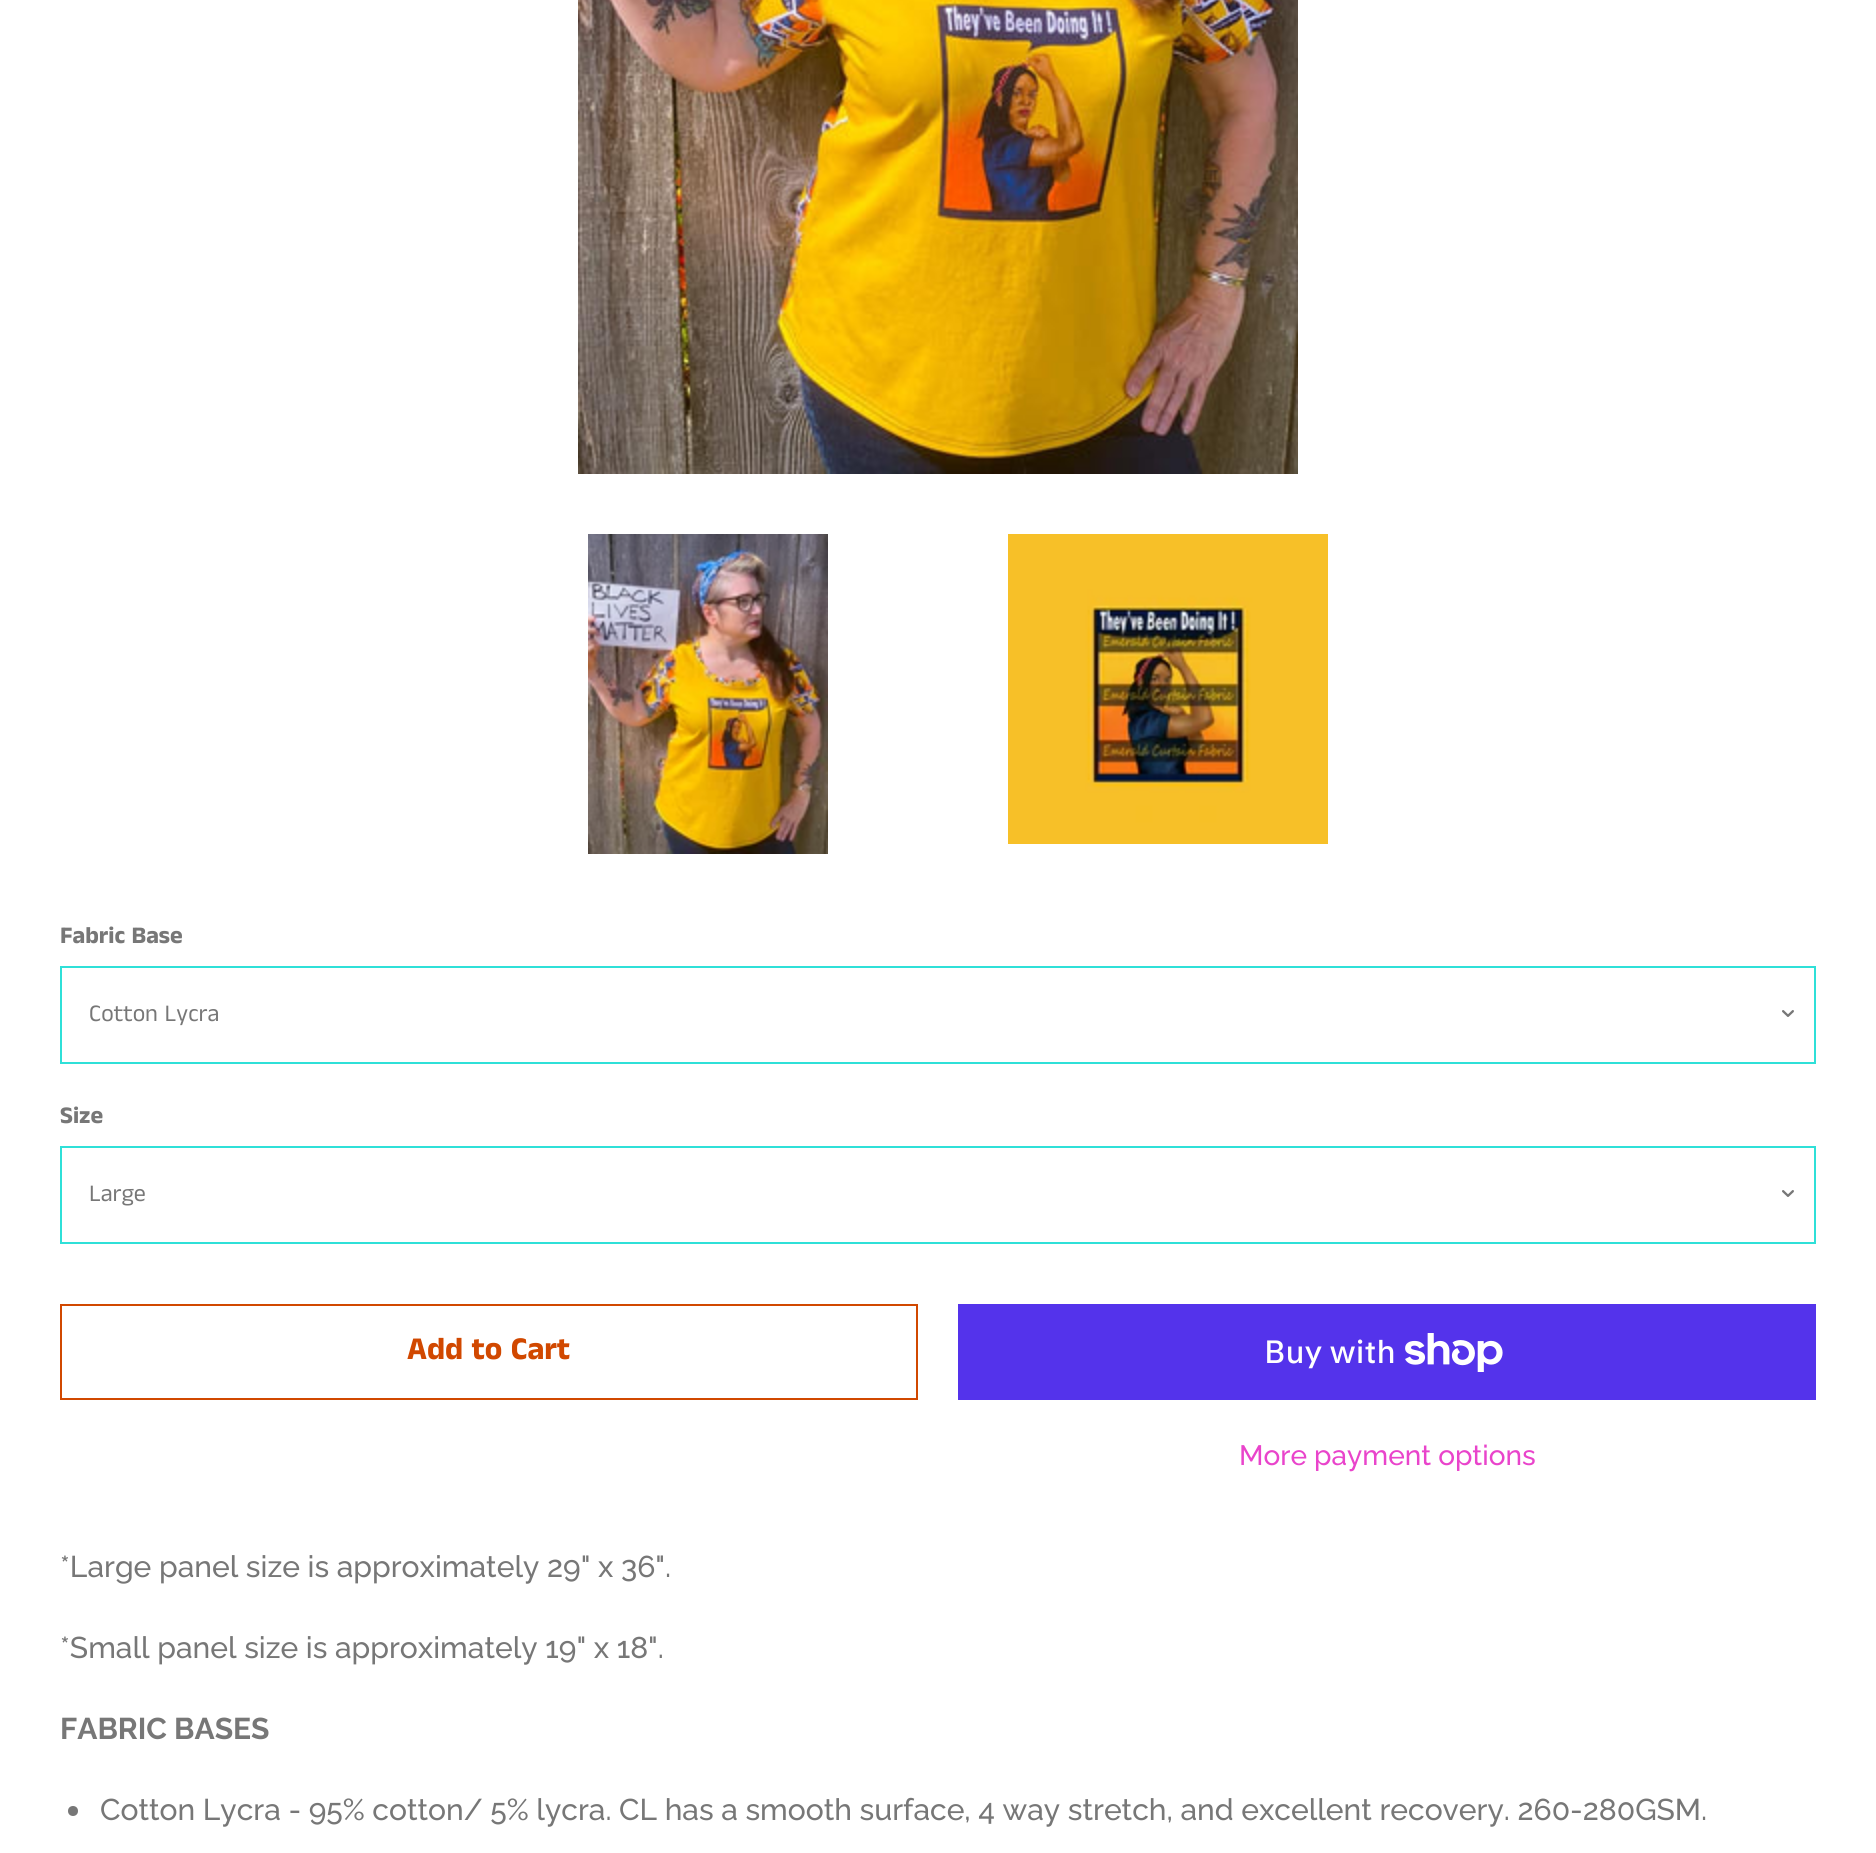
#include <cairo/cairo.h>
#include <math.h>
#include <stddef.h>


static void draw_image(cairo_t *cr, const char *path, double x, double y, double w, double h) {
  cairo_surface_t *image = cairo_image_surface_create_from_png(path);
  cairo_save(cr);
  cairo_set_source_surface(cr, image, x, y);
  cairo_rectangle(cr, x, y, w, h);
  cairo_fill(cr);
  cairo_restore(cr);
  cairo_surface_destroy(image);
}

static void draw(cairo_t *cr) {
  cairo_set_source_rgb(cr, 1, 1, 1);
  cairo_paint(cr);
  draw_image(cr, "images/1.png", 578, 0, 720, 474);
  draw_image(cr, "images/2.png", 588, 534, 240, 320);
  draw_image(cr, "images/3.png", 1008, 534, 320, 310);
  draw_image(cr, "images/4.png", 1782, 1010, 12, 7);
  cairo_rectangle(cr, 61, 967, 1754, 96);
  cairo_set_source_rgb(cr, 47 / 255.0, 224 / 255.0, 216 / 255.0);
  cairo_stroke(cr);
  draw_image(cr, "images/4.png", 1782, 1190, 12, 7);
  cairo_rectangle(cr, 61, 1147, 1754, 96);
  cairo_stroke(cr);
  cairo_rectangle(cr, 61, 1305, 856, 94);
  cairo_set_source_rgb(cr, 209 / 255.0, 72 / 255.0, 0);
  cairo_stroke(cr);
  cairo_set_source_rgb(cr, 84 / 255.0, 51 / 255.0, 235 / 255.0);
  cairo_rectangle(cr, 958, 1304, 858, 96);
  cairo_fill(cr);
  draw_image(cr, "images/5.png", 1405, 1333, 98, 39);
  cairo_set_source_rgb(cr, 119 / 255.0, 119 / 255.0, 119 / 255.0);
  cairo_arc(cr, 73, 1811, 5, 0, 2 * M_PI);
  cairo_fill(cr);
  cairo_select_font_face(cr, "Anek Tamil", CAIRO_FONT_SLANT_NORMAL, CAIRO_FONT_WEIGHT_BOLD);
  cairo_set_font_size(cr, 24);
  cairo_move_to(cr, 60, 943);
  cairo_show_text(cr, "Fabric Base");
  cairo_select_font_face(cr, "Anek Tamil", CAIRO_FONT_SLANT_NORMAL, CAIRO_FONT_WEIGHT_NORMAL);
  cairo_move_to(cr, 89, 1021);
  cairo_show_text(cr, "Cotton Lycra");
  cairo_select_font_face(cr, "Anek Tamil", CAIRO_FONT_SLANT_NORMAL, CAIRO_FONT_WEIGHT_BOLD);
  cairo_move_to(cr, 60, 1123);
  cairo_show_text(cr, "Size");
  cairo_select_font_face(cr, "Anek Tamil", CAIRO_FONT_SLANT_NORMAL, CAIRO_FONT_WEIGHT_NORMAL);
  cairo_move_to(cr, 89, 1201);
  cairo_show_text(cr, "Large");
  cairo_select_font_face(cr, "Anek Tamil", CAIRO_FONT_SLANT_NORMAL, CAIRO_FONT_WEIGHT_BOLD);
  cairo_set_font_size(cr, 32);
  cairo_set_source_rgb(cr, 209 / 255.0, 72 / 255.0, 0);
  cairo_move_to(cr, 407, 1359);
  cairo_show_text(cr, "Add to Cart");
  cairo_select_font_face(cr, "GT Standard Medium", CAIRO_FONT_SLANT_NORMAL, CAIRO_FONT_WEIGHT_NORMAL);
  cairo_set_source_rgb(cr, 1, 1, 1);
  cairo_move_to(cr, 1264, 1363);
  cairo_show_text(cr, "Buy with");
  cairo_select_font_face(cr, "Raleway Medium", CAIRO_FONT_SLANT_NORMAL, CAIRO_FONT_WEIGHT_NORMAL);
  cairo_set_font_size(cr, 28);
  cairo_set_source_rgb(cr, 233 / 255.0, 68 / 255.0, 203 / 255.0);
  cairo_move_to(cr, 1239, 1465);
  cairo_show_text(cr, "More payment options");
  cairo_set_font_size(cr, 30);
  cairo_set_source_rgb(cr, 119 / 255.0, 119 / 255.0, 119 / 255.0);
  cairo_move_to(cr, 60, 1577);
  cairo_show_text(cr, "*Large panel size is approximately 29\" x 36\".");
  cairo_move_to(cr, 60, 1658);
  cairo_show_text(cr, "*Small panel size is approximately 19\" x 18\".");
  cairo_select_font_face(cr, "Raleway", CAIRO_FONT_SLANT_NORMAL, CAIRO_FONT_WEIGHT_BOLD);
  cairo_move_to(cr, 60, 1739);
  cairo_show_text(cr, "FABRIC BASES");
  cairo_select_font_face(cr, "Raleway Medium", CAIRO_FONT_SLANT_NORMAL, CAIRO_FONT_WEIGHT_NORMAL);
  cairo_move_to(cr, 100, 1820);
  cairo_show_text(cr, "Cotton Lycra - 95% cotton/ 5% lycra. CL has a smooth surface, 4 way stretch, and excellent recovery. 260-280GSM.");
}

int main(void) {
  cairo_surface_t *surface = cairo_image_surface_create(CAIRO_FORMAT_RGB24, 1876, 1853);
  cairo_t *cr = cairo_create(surface);
  cairo_font_options_t *options = cairo_font_options_create();
  cairo_font_options_set_hint_metrics(options, CAIRO_HINT_METRICS_OFF);
  cairo_font_options_set_hint_style(options, CAIRO_HINT_STYLE_NONE);
  cairo_set_font_options(cr, options);
  cairo_set_miter_limit(cr, 4);
  draw(cr);
  cairo_surface_write_to_png(surface, "out.png");
  cairo_font_options_destroy(options);
  cairo_destroy(cr);
  cairo_surface_destroy(surface);
  return 0;
}
